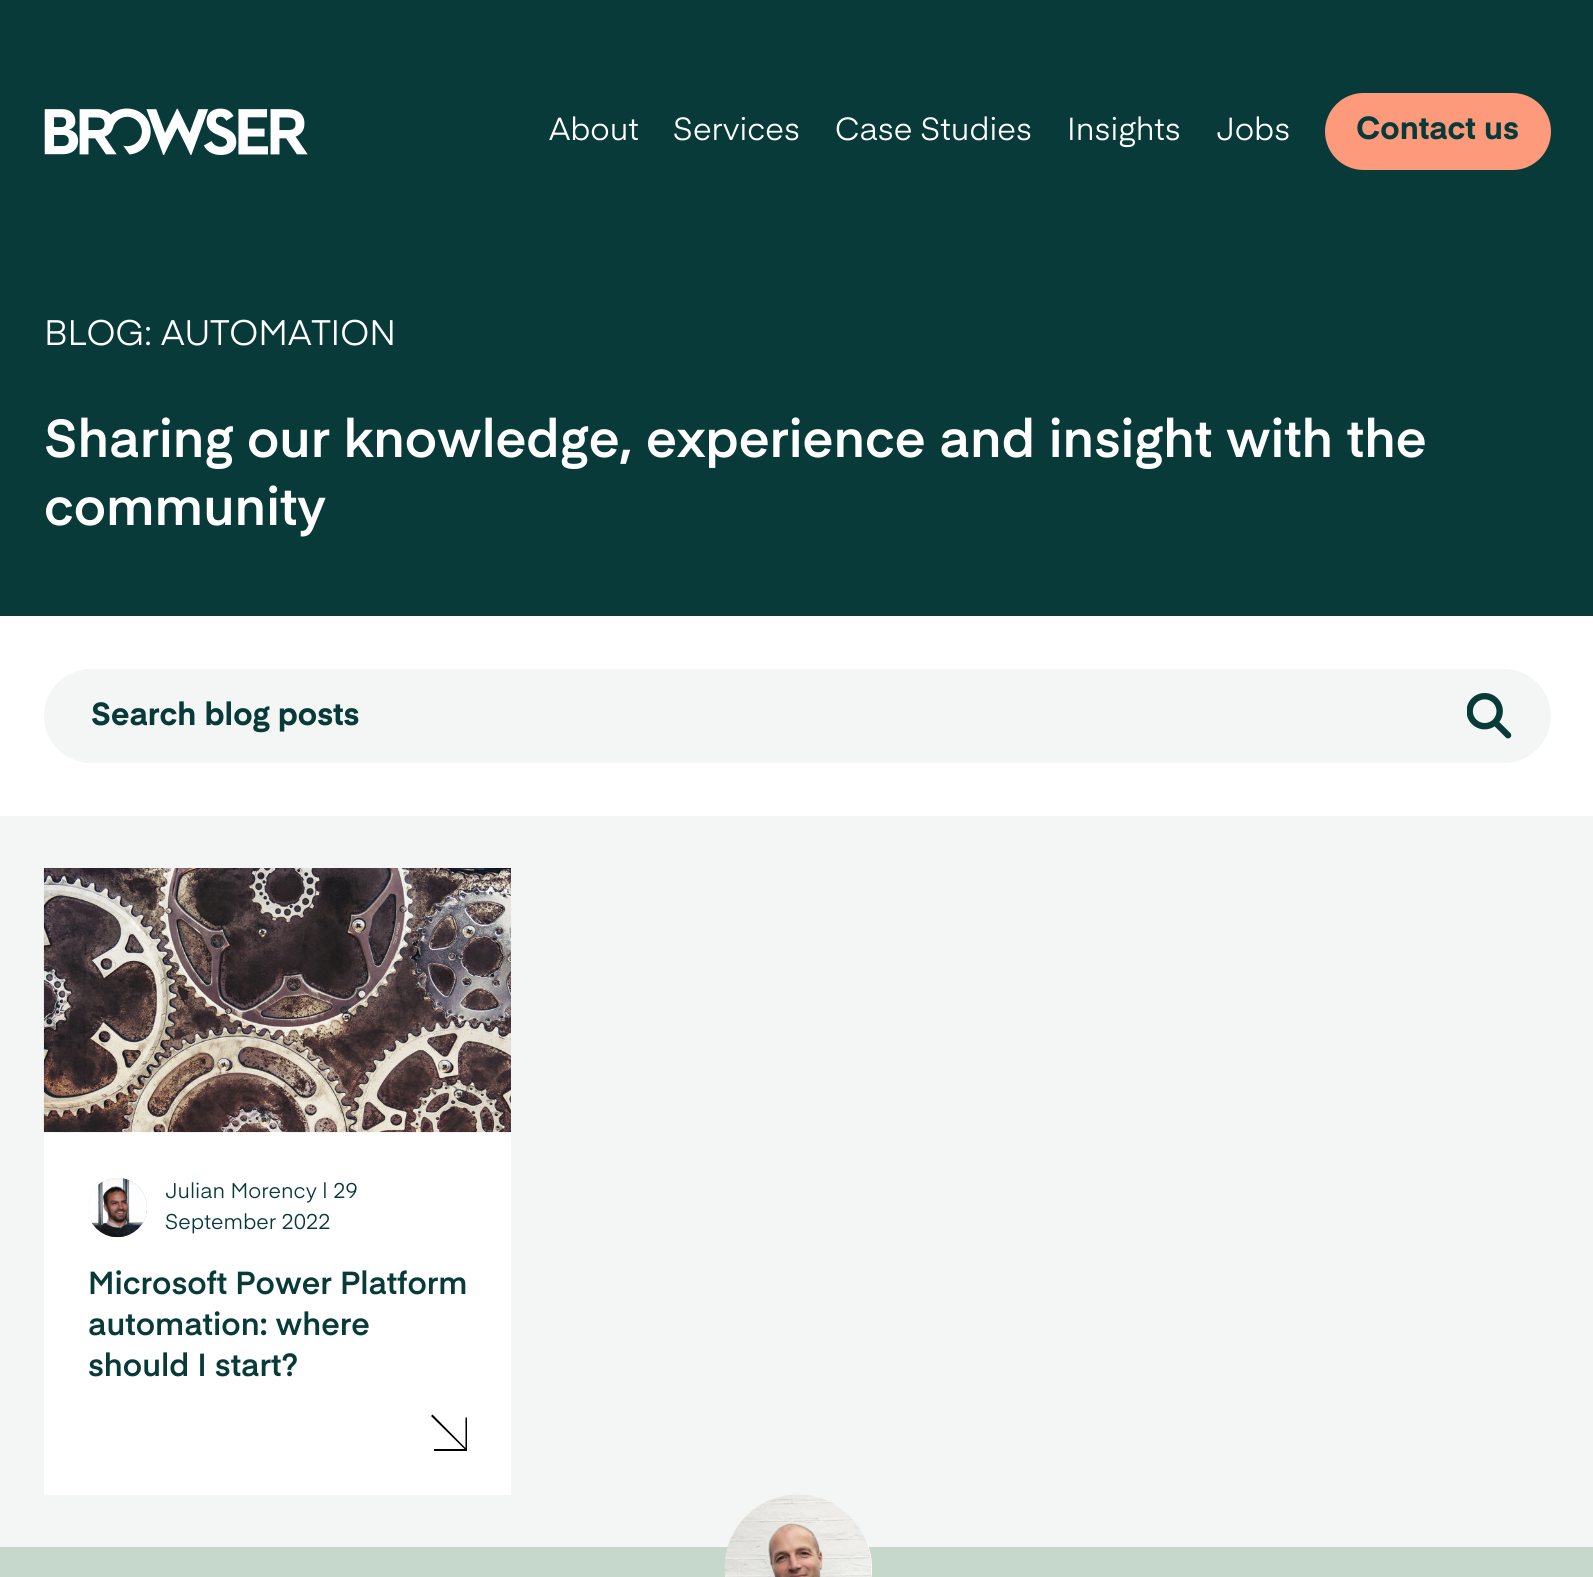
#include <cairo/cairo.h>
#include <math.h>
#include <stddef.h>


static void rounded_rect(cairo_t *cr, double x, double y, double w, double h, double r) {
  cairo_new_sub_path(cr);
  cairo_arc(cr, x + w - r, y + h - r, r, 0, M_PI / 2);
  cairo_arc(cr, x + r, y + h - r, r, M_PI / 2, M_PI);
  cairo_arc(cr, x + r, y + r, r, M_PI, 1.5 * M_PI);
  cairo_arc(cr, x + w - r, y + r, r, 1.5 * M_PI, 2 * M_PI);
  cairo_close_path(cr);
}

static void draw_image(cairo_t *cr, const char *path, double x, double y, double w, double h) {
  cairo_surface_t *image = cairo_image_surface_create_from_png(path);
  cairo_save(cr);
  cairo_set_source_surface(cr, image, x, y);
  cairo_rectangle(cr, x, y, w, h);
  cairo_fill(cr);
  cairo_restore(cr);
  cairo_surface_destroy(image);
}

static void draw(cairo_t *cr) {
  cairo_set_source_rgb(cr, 1, 1, 1);
  cairo_paint(cr);
  cairo_set_source_rgb(cr, 8 / 255.0, 58 / 255.0, 57 / 255.0);
  cairo_rectangle(cr, 0, 0, 1593, 616);
  cairo_fill(cr);
  draw_image(cr, "images/1.png", 44, 108, 264, 47);
  cairo_set_source_rgb(cr, 254 / 255.0, 154 / 255.0, 124 / 255.0);
  rounded_rect(cr, 1327, 95, 222, 73, 36.5);
  cairo_fill_preserve(cr);
  cairo_set_line_width(cr, 4);
  cairo_stroke(cr);
  cairo_set_source_rgb(cr, 243 / 255.0, 246 / 255.0, 244 / 255.0);
  rounded_rect(cr, 44, 669, 1507, 94, 47);
  cairo_fill(cr);
  draw_image(cr, "images/2.png", 1467, 693, 45, 46);
  cairo_rectangle(cr, 0, 816, 1593, 731);
  cairo_fill(cr);
  cairo_set_source_rgb(cr, 1, 1, 1);
  cairo_rectangle(cr, 44, 1132, 467, 363);
  cairo_fill(cr);
  draw_image(cr, "images/3.png", 43, 868, 468, 265);
  cairo_set_source_rgb(cr, 156 / 255.0, 178 / 255.0, 214 / 255.0);
  cairo_arc(cr, 117.5, 1207.5, 29.5, 0, 2 * M_PI);
  cairo_fill(cr);
  draw_image(cr, "images/4.png", 88, 1178, 59, 60);
  cairo_set_source_rgb(cr, 0, 0, 0);
  cairo_new_path(cr);
  cairo_move_to(cr, 432.5, 1414.5);
  cairo_line_to(cr, 431, 1416);
  cairo_line_to(cr, 464.5, 1449);
  cairo_line_to(cr, 434, 1449);
  cairo_line_to(cr, 434, 1451);
  cairo_line_to(cr, 467, 1451);
  cairo_line_to(cr, 467, 1417.5);
  cairo_line_to(cr, 465.5, 1417.5);
  cairo_line_to(cr, 465.5, 1448);
  cairo_close_path(cr);
  cairo_fill(cr);
  cairo_set_source_rgb(cr, 198 / 255.0, 215 / 255.0, 204 / 255.0);
  cairo_rectangle(cr, 0, 1547, 1593, 30);
  cairo_fill(cr);
  cairo_set_source_rgb(cr, 1, 1, 1);
  cairo_arc(cr, 798.5, 1568.5, 73.5, 0, 2 * M_PI);
  cairo_fill(cr);
  draw_image(cr, "images/5.png", 724, 1494, 148, 83);
  cairo_select_font_face(cr, "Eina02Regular", CAIRO_FONT_SLANT_NORMAL, CAIRO_FONT_WEIGHT_NORMAL);
  cairo_set_font_size(cr, 31.5);
  cairo_move_to(cr, 549, 140);
  cairo_show_text(cr, "About");
  cairo_move_to(cr, 673, 140);
  cairo_show_text(cr, "Services");
  cairo_move_to(cr, 835, 140);
  cairo_show_text(cr, "Case Studies");
  cairo_move_to(cr, 1067, 140);
  cairo_show_text(cr, "Insights");
  cairo_move_to(cr, 1216, 140);
  cairo_show_text(cr, "Jobs");
  cairo_select_font_face(cr, "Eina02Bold", CAIRO_FONT_SLANT_NORMAL, CAIRO_FONT_WEIGHT_BOLD);
  cairo_set_source_rgb(cr, 8 / 255.0, 58 / 255.0, 57 / 255.0);
  cairo_move_to(cr, 1356, 139);
  cairo_show_text(cr, "Contact us");
  cairo_select_font_face(cr, "Eina02Regular", CAIRO_FONT_SLANT_NORMAL, CAIRO_FONT_WEIGHT_NORMAL);
  cairo_set_font_size(cr, 35);
  cairo_set_source_rgb(cr, 1, 1, 1);
  cairo_move_to(cr, 44, 345);
  cairo_show_text(cr, "BLOG: AUTOMATION");
  cairo_select_font_face(cr, "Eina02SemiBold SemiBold", CAIRO_FONT_SLANT_NORMAL, CAIRO_FONT_WEIGHT_NORMAL);
  cairo_set_font_size(cr, 52.5);
  cairo_move_to(cr, 44, 457);
  cairo_show_text(cr, "Sharing our knowledge, experience and insight with the");
  cairo_move_to(cr, 44, 525);
  cairo_show_text(cr, "community");
  cairo_select_font_face(cr, "Eina02Bold", CAIRO_FONT_SLANT_NORMAL, CAIRO_FONT_WEIGHT_BOLD);
  cairo_set_font_size(cr, 31.5);
  cairo_set_source_rgb(cr, 8 / 255.0, 58 / 255.0, 57 / 255.0);
  cairo_move_to(cr, 91, 725);
  cairo_show_text(cr, "Search blog posts");
  cairo_select_font_face(cr, "Eina02Regular", CAIRO_FONT_SLANT_NORMAL, CAIRO_FONT_WEIGHT_NORMAL);
  cairo_set_font_size(cr, 21);
  cairo_move_to(cr, 165, 1198);
  cairo_show_text(cr, "Julian Morency");
  cairo_move_to(cr, 322, 1198);
  cairo_show_text(cr, "| 29");
  cairo_move_to(cr, 165, 1229);
  cairo_show_text(cr, "September 2022");
  cairo_select_font_face(cr, "Eina02SemiBold SemiBold", CAIRO_FONT_SLANT_NORMAL, CAIRO_FONT_WEIGHT_NORMAL);
  cairo_set_font_size(cr, 31.5);
  cairo_move_to(cr, 88, 1294);
  cairo_show_text(cr, "Microsoft Power Platform");
  cairo_move_to(cr, 88, 1335);
  cairo_show_text(cr, "automation: where");
  cairo_move_to(cr, 88, 1376);
  cairo_show_text(cr, "should I start?");
}

int main(void) {
  cairo_surface_t *surface = cairo_image_surface_create(CAIRO_FORMAT_RGB24, 1593, 1577);
  cairo_t *cr = cairo_create(surface);
  cairo_font_options_t *options = cairo_font_options_create();
  cairo_font_options_set_hint_metrics(options, CAIRO_HINT_METRICS_OFF);
  cairo_font_options_set_hint_style(options, CAIRO_HINT_STYLE_NONE);
  cairo_set_font_options(cr, options);
  cairo_set_miter_limit(cr, 4);
  draw(cr);
  cairo_surface_write_to_png(surface, "out.png");
  cairo_font_options_destroy(options);
  cairo_destroy(cr);
  cairo_surface_destroy(surface);
  return 0;
}
